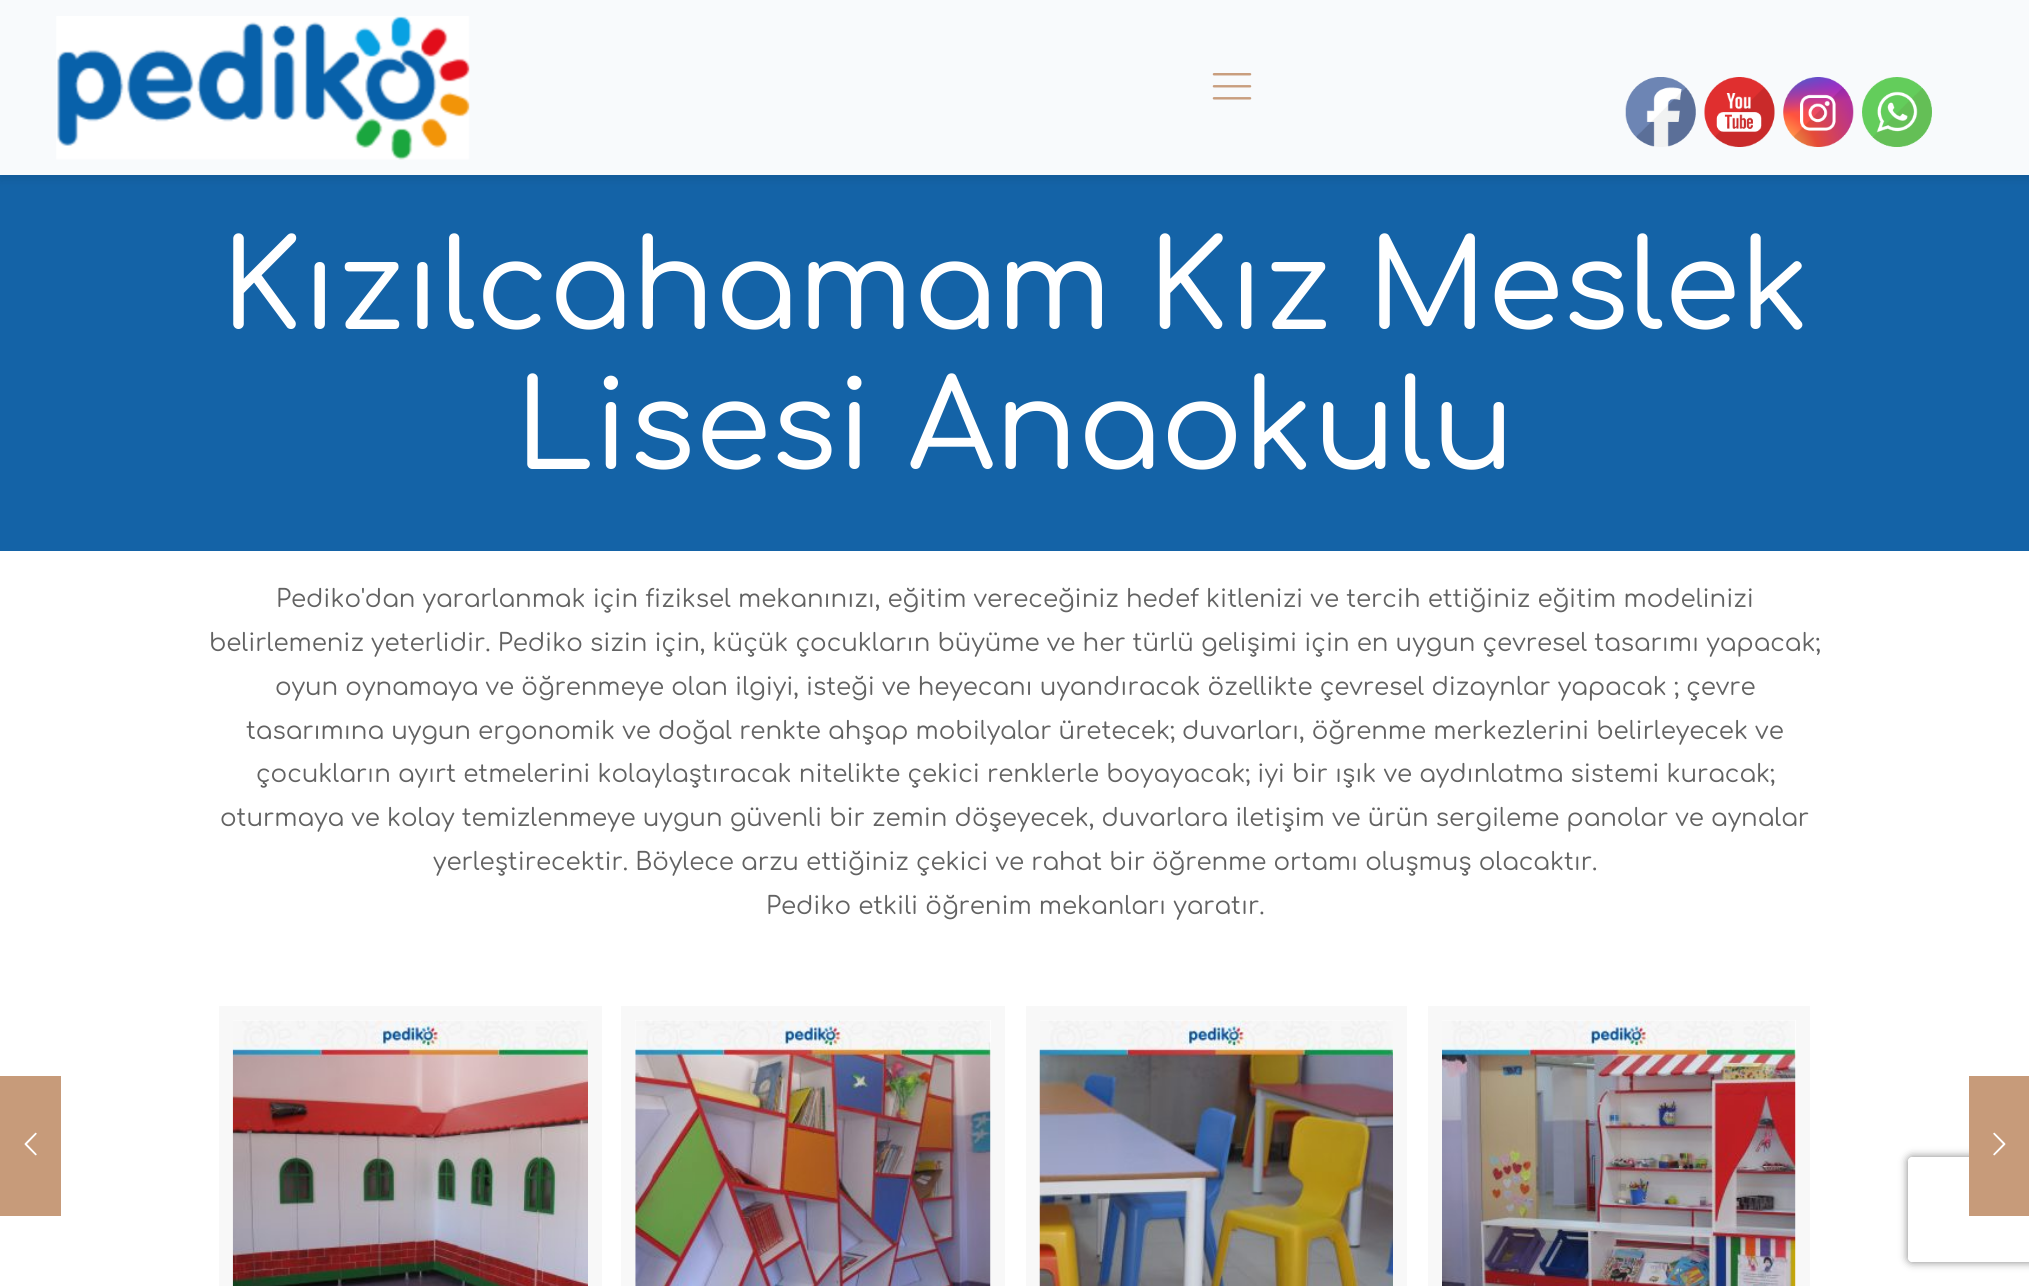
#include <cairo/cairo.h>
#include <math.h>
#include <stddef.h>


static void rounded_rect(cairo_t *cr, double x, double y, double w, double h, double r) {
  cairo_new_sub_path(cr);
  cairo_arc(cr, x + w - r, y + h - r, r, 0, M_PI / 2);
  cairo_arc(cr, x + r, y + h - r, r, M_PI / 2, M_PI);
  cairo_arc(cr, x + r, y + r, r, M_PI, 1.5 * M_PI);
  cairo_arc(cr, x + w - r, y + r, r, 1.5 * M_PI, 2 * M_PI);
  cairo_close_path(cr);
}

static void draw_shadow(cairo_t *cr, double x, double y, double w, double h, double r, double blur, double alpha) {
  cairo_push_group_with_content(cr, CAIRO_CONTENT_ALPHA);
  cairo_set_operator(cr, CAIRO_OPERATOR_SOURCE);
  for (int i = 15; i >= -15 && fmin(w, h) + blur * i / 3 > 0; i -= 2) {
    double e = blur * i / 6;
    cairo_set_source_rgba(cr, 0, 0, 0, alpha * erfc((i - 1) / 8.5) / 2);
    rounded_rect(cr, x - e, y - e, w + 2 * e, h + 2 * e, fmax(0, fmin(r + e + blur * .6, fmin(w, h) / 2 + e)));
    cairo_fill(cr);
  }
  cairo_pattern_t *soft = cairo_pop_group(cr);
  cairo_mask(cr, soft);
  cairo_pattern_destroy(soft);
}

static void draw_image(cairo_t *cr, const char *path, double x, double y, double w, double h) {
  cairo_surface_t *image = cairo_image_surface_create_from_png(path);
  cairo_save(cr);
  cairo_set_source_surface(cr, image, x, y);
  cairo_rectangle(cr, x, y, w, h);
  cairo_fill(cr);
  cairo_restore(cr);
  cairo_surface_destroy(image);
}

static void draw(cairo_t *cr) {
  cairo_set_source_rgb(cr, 1, 1, 1);
  cairo_paint(cr);
  cairo_set_source_rgb(cr, 20 / 255.0, 99 / 255.0, 167 / 255.0);
  cairo_rectangle(cr, 0, 175, 2029, 376);
  cairo_fill(cr);
  cairo_set_source_rgb(cr, 1 / 255.0, 3 / 255.0, 5 / 255.0);
  draw_shadow(cr, 0, 4, 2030, 175, 0, 4.5, 0.1);
  cairo_set_source_rgb(cr, 248 / 255.0, 250 / 255.0, 252 / 255.0);
  cairo_rectangle(cr, 0, 0, 2029, 175);
  cairo_fill(cr);
  draw_image(cr, "images/1.png", 1625, 77, 71, 70);
  draw_image(cr, "images/2.png", 1704, 77, 71, 70);
  draw_image(cr, "images/3.png", 1783, 77, 71, 70);
  draw_image(cr, "images/4.png", 1862, 77, 70, 70);
  draw_image(cr, "images/5.png", 56, 16, 414, 144);
  draw_image(cr, "images/6.png", 1212, 73, 40, 27);
  cairo_rectangle(cr, 226, 1013, 369, 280);
  cairo_set_source_rgb(cr, 248 / 255.0, 248 / 255.0, 248 / 255.0);
  cairo_set_line_width(cr, 14);
  cairo_stroke(cr);
  draw_image(cr, "images/7.png", 232, 1020, 356, 266);
  cairo_rectangle(cr, 628, 1013, 370, 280);
  cairo_stroke(cr);
  draw_image(cr, "images/8.png", 635, 1020, 356, 266);
  cairo_rectangle(cr, 1033, 1013, 367, 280);
  cairo_stroke(cr);
  draw_image(cr, "images/9.png", 1039, 1020, 354, 266);
  cairo_rectangle(cr, 1435, 1013, 368, 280);
  cairo_stroke(cr);
  draw_image(cr, "images/10.png", 1442, 1020, 354, 266);
  cairo_set_source_rgb(cr, 199 / 255.0, 155 / 255.0, 122 / 255.0);
  cairo_rectangle(cr, 0, 1076, 61, 140);
  cairo_fill(cr);
  draw_image(cr, "images/11.png", 24, 1132, 13, 24);
  cairo_save(cr);
  cairo_set_fill_rule(cr, CAIRO_FILL_RULE_EVEN_ODD);
  cairo_new_path(cr);
  cairo_move_to(cr, 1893, 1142);
  cairo_line_to(cr, 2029, 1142);
  cairo_line_to(cr, 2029, 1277);
  cairo_line_to(cr, 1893, 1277);
  cairo_close_path(cr);
  cairo_move_to(cr, 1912, 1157);
  cairo_line_to(cr, 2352, 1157);
  cairo_curve_to(cr, 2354, 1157, 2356, 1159, 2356, 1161);
  cairo_line_to(cr, 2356, 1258);
  cairo_curve_to(cr, 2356, 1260, 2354, 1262, 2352, 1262);
  cairo_line_to(cr, 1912, 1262);
  cairo_curve_to(cr, 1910, 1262, 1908, 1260, 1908, 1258);
  cairo_line_to(cr, 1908, 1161);
  cairo_curve_to(cr, 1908, 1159, 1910, 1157, 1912, 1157);
  cairo_close_path(cr);
  cairo_clip(cr);
  cairo_set_source_rgb(cr, 128 / 255.0, 128 / 255.0, 128 / 255.0);
  draw_shadow(cr, 1908, 1157, 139, 105, 4, 4.5, 1);
  cairo_restore(cr);
  cairo_rectangle(cr, 1969, 1076, 60, 140);
  cairo_fill(cr);
  draw_image(cr, "images/12.png", 1993, 1132, 13, 24);
  cairo_select_font_face(cr, "Comfortaa Medium", CAIRO_FONT_SLANT_NORMAL, CAIRO_FONT_WEIGHT_NORMAL);
  cairo_set_font_size(cr, 122.5);
  cairo_set_source_rgb(cr, 1, 1, 1);
  cairo_move_to(cr, 221, 329);
  cairo_show_text(cr, "Kızılcahamam Kız Meslek");
  cairo_move_to(cr, 515, 469);
  cairo_show_text(cr, "Lisesi Anaokulu");
  cairo_select_font_face(cr, "Comfortaa", CAIRO_FONT_SLANT_NORMAL, CAIRO_FONT_WEIGHT_NORMAL);
  cairo_set_font_size(cr, 24.5);
  cairo_set_source_rgb(cr, 98 / 255.0, 98 / 255.0, 98 / 255.0);
  cairo_move_to(cr, 276, 607);
  cairo_show_text(cr, "Pediko'dan yararlanmak için fiziksel mekanınızı, eğitim vereceğiniz hedef kitlenizi ve tercih ettiğiniz eğitim modelinizi");
  cairo_move_to(cr, 209, 651);
  cairo_show_text(cr, "belirlemeniz yeterlidir. Pediko sizin için, küçük çocukların büyüme ve her türlü gelişimi için en uygun çevresel tasarımı yapacak;");
  cairo_move_to(cr, 275, 695);
  cairo_show_text(cr, "oyun oynamaya ve öğrenmeye olan ilgiyi, isteği ve heyecanı uyandıracak özellikte çevresel dizaynlar yapacak ; çevre");
  cairo_move_to(cr, 246, 739);
  cairo_show_text(cr, "tasarımına uygun ergonomik ve doğal renkte ahşap mobilyalar üretecek; duvarları, öğrenme merkezlerini belirleyecek ve");
  cairo_move_to(cr, 256, 782);
  cairo_show_text(cr, "çocukların ayırt etmelerini kolaylaştıracak nitelikte çekici renklerle boyayacak; iyi bir ışık ve aydınlatma sistemi kuracak;");
  cairo_move_to(cr, 220, 826);
  cairo_show_text(cr, "oturmaya ve kolay temizlenmeye uygun güvenli bir zemin döşeyecek, duvarlara iletişim ve ürün sergileme panolar ve aynalar");
  cairo_move_to(cr, 433, 870);
  cairo_show_text(cr, "yerleştirecektir. Böylece arzu ettiğiniz çekici ve rahat bir öğrenme ortamı oluşmuş olacaktır.");
  cairo_move_to(cr, 766, 914);
  cairo_show_text(cr, "Pediko etkili öğrenim mekanları yaratır.");
}

int main(void) {
  cairo_surface_t *surface = cairo_image_surface_create(CAIRO_FORMAT_RGB24, 2029, 1286);
  cairo_t *cr = cairo_create(surface);
  cairo_font_options_t *options = cairo_font_options_create();
  cairo_font_options_set_hint_metrics(options, CAIRO_HINT_METRICS_OFF);
  cairo_font_options_set_hint_style(options, CAIRO_HINT_STYLE_NONE);
  cairo_set_font_options(cr, options);
  cairo_set_miter_limit(cr, 4);
  draw(cr);
  cairo_surface_write_to_png(surface, "out.png");
  cairo_font_options_destroy(options);
  cairo_destroy(cr);
  cairo_surface_destroy(surface);
  return 0;
}
